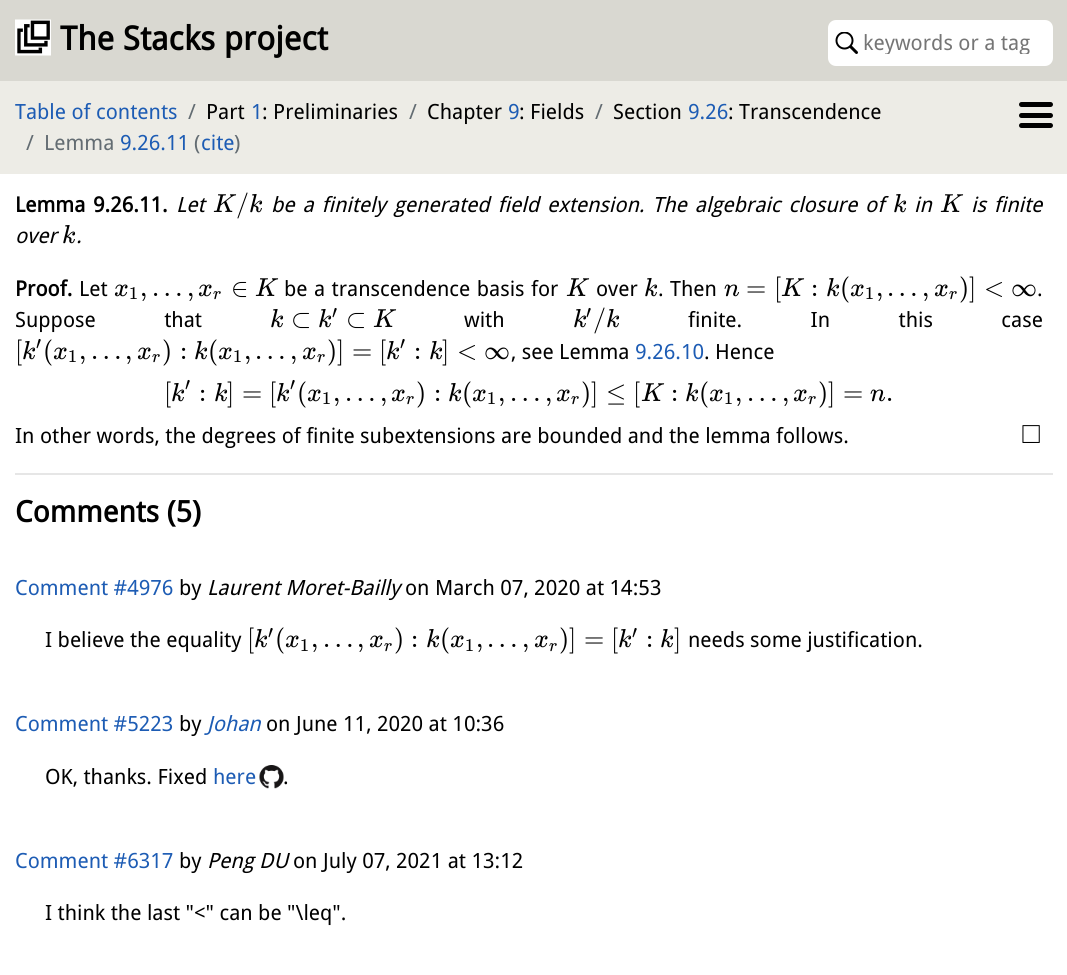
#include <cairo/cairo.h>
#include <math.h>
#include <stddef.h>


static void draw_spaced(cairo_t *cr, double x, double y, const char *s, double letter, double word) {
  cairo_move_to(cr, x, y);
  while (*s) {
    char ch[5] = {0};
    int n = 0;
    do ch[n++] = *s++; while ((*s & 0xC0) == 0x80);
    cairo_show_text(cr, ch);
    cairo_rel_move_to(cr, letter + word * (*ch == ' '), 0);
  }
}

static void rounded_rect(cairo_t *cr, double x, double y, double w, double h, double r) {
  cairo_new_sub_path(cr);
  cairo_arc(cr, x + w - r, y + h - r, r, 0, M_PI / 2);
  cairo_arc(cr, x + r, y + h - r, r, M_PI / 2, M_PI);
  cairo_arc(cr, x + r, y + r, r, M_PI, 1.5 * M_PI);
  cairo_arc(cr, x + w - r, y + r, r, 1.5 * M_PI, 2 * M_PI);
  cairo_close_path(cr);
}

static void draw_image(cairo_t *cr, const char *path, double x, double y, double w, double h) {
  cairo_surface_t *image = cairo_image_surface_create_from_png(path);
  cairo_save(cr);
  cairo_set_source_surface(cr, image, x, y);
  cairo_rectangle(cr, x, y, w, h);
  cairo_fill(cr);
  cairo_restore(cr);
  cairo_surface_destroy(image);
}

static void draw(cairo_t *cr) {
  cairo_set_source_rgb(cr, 1, 1, 1);
  cairo_paint(cr);
  cairo_set_source_rgb(cr, 217 / 255.0, 216 / 255.0, 209 / 255.0);
  cairo_rectangle(cr, 0, 0, 1067, 81);
  cairo_fill(cr);
  draw_image(cr, "images/1.png", 15, 19, 36, 37);
  cairo_set_source_rgb(cr, 1, 1, 1);
  rounded_rect(cr, 828, 20, 225, 46, 8);
  cairo_fill(cr);
  draw_image(cr, "images/2.png", 835, 32, 23, 22);
  cairo_set_source_rgb(cr, 237 / 255.0, 236 / 255.0, 230 / 255.0);
  cairo_rectangle(cr, 0, 81, 1067, 93);
  cairo_fill(cr);
  cairo_set_source_rgb(cr, 0, 0, 0);
  rounded_rect(cr, 1019, 102, 34, 5, 2.5);
  cairo_fill(cr);
  rounded_rect(cr, 1019, 113, 34, 5, 2.5);
  cairo_fill(cr);
  rounded_rect(cr, 1019, 123, 34, 5, 2.5);
  cairo_fill(cr);
  cairo_set_source_rgb(cr, 230 / 255.0, 230 / 255.0, 230 / 255.0);
  cairo_rectangle(cr, 15, 473, 1038, 2);
  cairo_fill(cr);
  draw_image(cr, "images/3.png", 259, 765, 25, 24);
  cairo_select_font_face(cr, "Droid Sans", CAIRO_FONT_SLANT_NORMAL, CAIRO_FONT_WEIGHT_BOLD);
  cairo_set_font_size(cr, 33);
  cairo_set_source_rgb(cr, 0, 0, 0);
  cairo_move_to(cr, 60, 50);
  cairo_show_text(cr, "The Stacks project");
  cairo_save(cr);
  cairo_rectangle(cr, 863, 30, 181, 24);
  cairo_clip(cr);
  cairo_select_font_face(cr, "Droid Sans", CAIRO_FONT_SLANT_NORMAL, CAIRO_FONT_WEIGHT_NORMAL);
  cairo_set_font_size(cr, 21);
  cairo_set_source_rgb(cr, 117 / 255.0, 117 / 255.0, 117 / 255.0);
  cairo_move_to(cr, 863, 50);
  cairo_show_text(cr, "keywords or a tag");
  cairo_restore(cr);
  cairo_select_font_face(cr, "Droid Sans", CAIRO_FONT_SLANT_NORMAL, CAIRO_FONT_WEIGHT_NORMAL);
  cairo_set_font_size(cr, 21);
  cairo_set_source_rgb(cr, 29 / 255.0, 92 / 255.0, 180 / 255.0);
  cairo_move_to(cr, 15, 119);
  cairo_show_text(cr, "Table of contents");
  cairo_set_source_rgb(cr, 99 / 255.0, 108 / 255.0, 114 / 255.0);
  cairo_move_to(cr, 188, 119);
  cairo_show_text(cr, "/");
  cairo_set_source_rgb(cr, 0, 0, 0);
  cairo_move_to(cr, 206, 119);
  cairo_show_text(cr, "Part");
  cairo_set_source_rgb(cr, 29 / 255.0, 92 / 255.0, 180 / 255.0);
  cairo_move_to(cr, 251, 119);
  cairo_show_text(cr, "1");
  cairo_set_source_rgb(cr, 0, 0, 0);
  cairo_move_to(cr, 262, 119);
  cairo_show_text(cr, ": Preliminaries");
  cairo_set_source_rgb(cr, 99 / 255.0, 108 / 255.0, 114 / 255.0);
  cairo_move_to(cr, 409, 119);
  cairo_show_text(cr, "/");
  cairo_set_source_rgb(cr, 0, 0, 0);
  cairo_move_to(cr, 427, 119);
  cairo_show_text(cr, "Chapter");
  cairo_set_source_rgb(cr, 29 / 255.0, 92 / 255.0, 180 / 255.0);
  cairo_move_to(cr, 508, 119);
  cairo_show_text(cr, "9");
  cairo_set_source_rgb(cr, 0, 0, 0);
  cairo_move_to(cr, 519, 119);
  cairo_show_text(cr, ": Fields");
  cairo_set_source_rgb(cr, 99 / 255.0, 108 / 255.0, 114 / 255.0);
  cairo_move_to(cr, 595, 119);
  cairo_show_text(cr, "/");
  cairo_set_source_rgb(cr, 0, 0, 0);
  cairo_move_to(cr, 613, 119);
  cairo_show_text(cr, "Section");
  cairo_set_source_rgb(cr, 29 / 255.0, 92 / 255.0, 180 / 255.0);
  cairo_move_to(cr, 688, 119);
  cairo_show_text(cr, "9.26");
  cairo_set_source_rgb(cr, 0, 0, 0);
  cairo_move_to(cr, 728, 119);
  cairo_show_text(cr, ": Transcendence");
  cairo_set_source_rgb(cr, 99 / 255.0, 108 / 255.0, 114 / 255.0);
  cairo_move_to(cr, 26, 150);
  cairo_show_text(cr, "/");
  cairo_move_to(cr, 44, 150);
  cairo_show_text(cr, "Lemma");
  cairo_set_source_rgb(cr, 29 / 255.0, 92 / 255.0, 180 / 255.0);
  cairo_move_to(cr, 120, 150);
  cairo_show_text(cr, "9.26.11");
  cairo_set_source_rgb(cr, 99 / 255.0, 108 / 255.0, 114 / 255.0);
  cairo_move_to(cr, 194, 150);
  cairo_show_text(cr, "(");
  cairo_set_source_rgb(cr, 29 / 255.0, 92 / 255.0, 180 / 255.0);
  cairo_move_to(cr, 201, 150);
  cairo_show_text(cr, "cite");
  cairo_set_source_rgb(cr, 99 / 255.0, 108 / 255.0, 114 / 255.0);
  cairo_move_to(cr, 234, 150);
  cairo_show_text(cr, ")");
  cairo_select_font_face(cr, "Droid Sans", CAIRO_FONT_SLANT_NORMAL, CAIRO_FONT_WEIGHT_BOLD);
  cairo_set_source_rgb(cr, 0, 0, 0);
  cairo_move_to(cr, 15, 212);
  cairo_show_text(cr, "Lemma");
  cairo_move_to(cr, 93, 212);
  cairo_show_text(cr, "9.26.11.");
  cairo_select_font_face(cr, "Droid Sans", CAIRO_FONT_SLANT_ITALIC, CAIRO_FONT_WEIGHT_NORMAL);
  cairo_move_to(cr, 176, 212);
  cairo_show_text(cr, "Let");
  cairo_select_font_face(cr, "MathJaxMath", CAIRO_FONT_SLANT_ITALIC, CAIRO_FONT_WEIGHT_NORMAL);
  cairo_set_font_size(cr, 26);
  cairo_move_to(cr, 213, 212);
  cairo_show_text(cr, "K");
  cairo_select_font_face(cr, "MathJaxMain", CAIRO_FONT_SLANT_NORMAL, CAIRO_FONT_WEIGHT_NORMAL);
  cairo_move_to(cr, 236, 212);
  cairo_show_text(cr, "/");
  cairo_select_font_face(cr, "MathJaxMath", CAIRO_FONT_SLANT_ITALIC, CAIRO_FONT_WEIGHT_NORMAL);
  cairo_move_to(cr, 249, 212);
  cairo_show_text(cr, "k");
  cairo_select_font_face(cr, "Droid Sans", CAIRO_FONT_SLANT_ITALIC, CAIRO_FONT_WEIGHT_NORMAL);
  cairo_set_font_size(cr, 21);
  draw_spaced(cr, 271, 212, "be a finitely generated field extension. The algebraic closure of", 0, 2.5);
  cairo_select_font_face(cr, "MathJaxMath", CAIRO_FONT_SLANT_ITALIC, CAIRO_FONT_WEIGHT_NORMAL);
  cairo_set_font_size(cr, 26);
  cairo_move_to(cr, 893, 212);
  cairo_show_text(cr, "k");
  cairo_select_font_face(cr, "Droid Sans", CAIRO_FONT_SLANT_ITALIC, CAIRO_FONT_WEIGHT_NORMAL);
  cairo_set_font_size(cr, 21);
  cairo_move_to(cr, 914, 212);
  cairo_show_text(cr, "in");
  cairo_select_font_face(cr, "MathJaxMath", CAIRO_FONT_SLANT_ITALIC, CAIRO_FONT_WEIGHT_NORMAL);
  cairo_set_font_size(cr, 26);
  cairo_move_to(cr, 940, 212);
  cairo_show_text(cr, "K");
  cairo_select_font_face(cr, "Droid Sans", CAIRO_FONT_SLANT_ITALIC, CAIRO_FONT_WEIGHT_NORMAL);
  cairo_set_font_size(cr, 21);
  draw_spaced(cr, 971, 212, "is finite", 0, 2.5);
  cairo_move_to(cr, 15, 243);
  cairo_show_text(cr, "over");
  cairo_select_font_face(cr, "MathJaxMath", CAIRO_FONT_SLANT_ITALIC, CAIRO_FONT_WEIGHT_NORMAL);
  cairo_set_font_size(cr, 26);
  cairo_move_to(cr, 62, 243);
  cairo_show_text(cr, "k");
  cairo_select_font_face(cr, "Droid Sans", CAIRO_FONT_SLANT_ITALIC, CAIRO_FONT_WEIGHT_NORMAL);
  cairo_set_font_size(cr, 21);
  cairo_move_to(cr, 76, 243);
  cairo_show_text(cr, ".");
  cairo_select_font_face(cr, "Droid Sans", CAIRO_FONT_SLANT_NORMAL, CAIRO_FONT_WEIGHT_BOLD);
  cairo_move_to(cr, 15, 296);
  cairo_show_text(cr, "Proof.");
  cairo_select_font_face(cr, "Droid Sans", CAIRO_FONT_SLANT_NORMAL, CAIRO_FONT_WEIGHT_NORMAL);
  cairo_move_to(cr, 79, 296);
  cairo_show_text(cr, "Let");
  cairo_select_font_face(cr, "MathJaxMath", CAIRO_FONT_SLANT_ITALIC, CAIRO_FONT_WEIGHT_NORMAL);
  cairo_set_font_size(cr, 26);
  cairo_move_to(cr, 114, 296);
  cairo_show_text(cr, "x");
  cairo_select_font_face(cr, "MathJaxMain", CAIRO_FONT_SLANT_NORMAL, CAIRO_FONT_WEIGHT_NORMAL);
  cairo_set_font_size(cr, 18);
  cairo_move_to(cr, 129, 299);
  cairo_show_text(cr, "1");
  cairo_set_font_size(cr, 26);
  cairo_move_to(cr, 140, 296);
  cairo_show_text(cr, ",");
  cairo_move_to(cr, 152, 296);
  cairo_show_text(cr, "…");
  cairo_move_to(cr, 187, 296);
  cairo_show_text(cr, ",");
  cairo_select_font_face(cr, "MathJaxMath", CAIRO_FONT_SLANT_ITALIC, CAIRO_FONT_WEIGHT_NORMAL);
  cairo_move_to(cr, 198, 296);
  cairo_show_text(cr, "x");
  cairo_set_font_size(cr, 18);
  cairo_move_to(cr, 213, 299);
  cairo_show_text(cr, "r");
  cairo_select_font_face(cr, "MathJaxMain", CAIRO_FONT_SLANT_NORMAL, CAIRO_FONT_WEIGHT_NORMAL);
  cairo_set_font_size(cr, 26);
  cairo_move_to(cr, 231, 296);
  cairo_show_text(cr, "∈");
  cairo_select_font_face(cr, "MathJaxMath", CAIRO_FONT_SLANT_ITALIC, CAIRO_FONT_WEIGHT_NORMAL);
  cairo_move_to(cr, 255, 296);
  cairo_show_text(cr, "K");
  cairo_select_font_face(cr, "Droid Sans", CAIRO_FONT_SLANT_NORMAL, CAIRO_FONT_WEIGHT_NORMAL);
  cairo_set_font_size(cr, 21);
  draw_spaced(cr, 284, 296, "be a transcendence basis for", 0, 1);
  cairo_select_font_face(cr, "MathJaxMath", CAIRO_FONT_SLANT_ITALIC, CAIRO_FONT_WEIGHT_NORMAL);
  cairo_set_font_size(cr, 26);
  cairo_move_to(cr, 566, 296);
  cairo_show_text(cr, "K");
  cairo_select_font_face(cr, "Droid Sans", CAIRO_FONT_SLANT_NORMAL, CAIRO_FONT_WEIGHT_NORMAL);
  cairo_set_font_size(cr, 21);
  cairo_move_to(cr, 596, 296);
  cairo_show_text(cr, "over");
  cairo_select_font_face(cr, "MathJaxMath", CAIRO_FONT_SLANT_ITALIC, CAIRO_FONT_WEIGHT_NORMAL);
  cairo_set_font_size(cr, 26);
  cairo_move_to(cr, 644, 296);
  cairo_show_text(cr, "k");
  cairo_select_font_face(cr, "Droid Sans", CAIRO_FONT_SLANT_NORMAL, CAIRO_FONT_WEIGHT_NORMAL);
  cairo_set_font_size(cr, 21);
  draw_spaced(cr, 658, 296, ". Then", 0, 1);
  cairo_select_font_face(cr, "MathJaxMath", CAIRO_FONT_SLANT_ITALIC, CAIRO_FONT_WEIGHT_NORMAL);
  cairo_set_font_size(cr, 26);
  cairo_move_to(cr, 724, 296);
  cairo_show_text(cr, "n");
  cairo_select_font_face(cr, "MathJaxMain", CAIRO_FONT_SLANT_NORMAL, CAIRO_FONT_WEIGHT_NORMAL);
  cairo_move_to(cr, 746, 296);
  cairo_show_text(cr, "=");
  cairo_move_to(cr, 774, 296);
  cairo_show_text(cr, "[");
  cairo_select_font_face(cr, "MathJaxMath", CAIRO_FONT_SLANT_ITALIC, CAIRO_FONT_WEIGHT_NORMAL);
  cairo_move_to(cr, 781, 296);
  cairo_show_text(cr, "K");
  cairo_select_font_face(cr, "MathJaxMain", CAIRO_FONT_SLANT_NORMAL, CAIRO_FONT_WEIGHT_NORMAL);
  cairo_move_to(cr, 811, 296);
  cairo_show_text(cr, ":");
  cairo_select_font_face(cr, "MathJaxMath", CAIRO_FONT_SLANT_ITALIC, CAIRO_FONT_WEIGHT_NORMAL);
  cairo_move_to(cr, 826, 296);
  cairo_show_text(cr, "k");
  cairo_select_font_face(cr, "MathJaxMain", CAIRO_FONT_SLANT_NORMAL, CAIRO_FONT_WEIGHT_NORMAL);
  cairo_move_to(cr, 840, 296);
  cairo_show_text(cr, "(");
  cairo_select_font_face(cr, "MathJaxMath", CAIRO_FONT_SLANT_ITALIC, CAIRO_FONT_WEIGHT_NORMAL);
  cairo_move_to(cr, 850, 296);
  cairo_show_text(cr, "x");
  cairo_select_font_face(cr, "MathJaxMain", CAIRO_FONT_SLANT_NORMAL, CAIRO_FONT_WEIGHT_NORMAL);
  cairo_set_font_size(cr, 18);
  cairo_move_to(cr, 865, 299);
  cairo_show_text(cr, "1");
  cairo_select_font_face(cr, "MathJaxMath", CAIRO_FONT_SLANT_ITALIC, CAIRO_FONT_WEIGHT_NORMAL);
  cairo_set_font_size(cr, 26);
  cairo_move_to(cr, 934, 296);
  cairo_show_text(cr, "x");
  cairo_set_font_size(cr, 18);
  cairo_move_to(cr, 949, 299);
  cairo_show_text(cr, "r");
  cairo_select_font_face(cr, "MathJaxMain", CAIRO_FONT_SLANT_NORMAL, CAIRO_FONT_WEIGHT_NORMAL);
  cairo_set_font_size(cr, 26);
  cairo_move_to(cr, 959, 296);
  cairo_show_text(cr, ")]");
  cairo_move_to(cr, 984, 296);
  cairo_show_text(cr, "<");
  cairo_move_to(cr, 1011, 296);
  cairo_show_text(cr, "∞");
  cairo_move_to(cr, 876, 296);
  cairo_show_text(cr, ",");
  cairo_move_to(cr, 887, 296);
  cairo_show_text(cr, "…");
  cairo_move_to(cr, 922, 296);
  cairo_show_text(cr, ",");
  cairo_select_font_face(cr, "Droid Sans", CAIRO_FONT_SLANT_NORMAL, CAIRO_FONT_WEIGHT_NORMAL);
  cairo_set_font_size(cr, 21);
  cairo_move_to(cr, 1037, 296);
  cairo_show_text(cr, ".");
  draw_spaced(cr, 15, 327, "Suppose that", 0, 63);
  cairo_select_font_face(cr, "MathJaxMath", CAIRO_FONT_SLANT_ITALIC, CAIRO_FONT_WEIGHT_NORMAL);
  cairo_set_font_size(cr, 26);
  cairo_move_to(cr, 270, 327);
  cairo_show_text(cr, "k");
  cairo_select_font_face(cr, "MathJaxMain", CAIRO_FONT_SLANT_NORMAL, CAIRO_FONT_WEIGHT_NORMAL);
  cairo_move_to(cr, 291, 327);
  cairo_show_text(cr, "⊂");
  cairo_select_font_face(cr, "MathJaxMath", CAIRO_FONT_SLANT_ITALIC, CAIRO_FONT_WEIGHT_NORMAL);
  cairo_move_to(cr, 318, 327);
  cairo_show_text(cr, "k");
  cairo_select_font_face(cr, "MathJaxMain", CAIRO_FONT_SLANT_NORMAL, CAIRO_FONT_WEIGHT_NORMAL);
  cairo_set_font_size(cr, 18);
  cairo_move_to(cr, 332, 318);
  cairo_show_text(cr, "′");
  cairo_set_font_size(cr, 26);
  cairo_move_to(cr, 346, 327);
  cairo_show_text(cr, "⊂");
  cairo_select_font_face(cr, "MathJaxMath", CAIRO_FONT_SLANT_ITALIC, CAIRO_FONT_WEIGHT_NORMAL);
  cairo_move_to(cr, 373, 327);
  cairo_show_text(cr, "K");
  cairo_select_font_face(cr, "Droid Sans", CAIRO_FONT_SLANT_NORMAL, CAIRO_FONT_WEIGHT_NORMAL);
  cairo_set_font_size(cr, 21);
  cairo_move_to(cr, 464, 327);
  cairo_show_text(cr, "with");
  cairo_select_font_face(cr, "MathJaxMath", CAIRO_FONT_SLANT_ITALIC, CAIRO_FONT_WEIGHT_NORMAL);
  cairo_set_font_size(cr, 26);
  cairo_move_to(cr, 573, 327);
  cairo_show_text(cr, "k");
  cairo_select_font_face(cr, "MathJaxMain", CAIRO_FONT_SLANT_NORMAL, CAIRO_FONT_WEIGHT_NORMAL);
  cairo_set_font_size(cr, 18);
  cairo_move_to(cr, 586, 318);
  cairo_show_text(cr, "′");
  cairo_set_font_size(cr, 26);
  cairo_move_to(cr, 593, 327);
  cairo_show_text(cr, "/");
  cairo_select_font_face(cr, "MathJaxMath", CAIRO_FONT_SLANT_ITALIC, CAIRO_FONT_WEIGHT_NORMAL);
  cairo_move_to(cr, 606, 327);
  cairo_show_text(cr, "k");
  cairo_select_font_face(cr, "Droid Sans", CAIRO_FONT_SLANT_NORMAL, CAIRO_FONT_WEIGHT_NORMAL);
  cairo_set_font_size(cr, 21);
  draw_spaced(cr, 688, 327, "finite. In this case", 0, 63);
  cairo_select_font_face(cr, "MathJaxMain", CAIRO_FONT_SLANT_NORMAL, CAIRO_FONT_WEIGHT_NORMAL);
  cairo_set_font_size(cr, 26);
  cairo_move_to(cr, 15, 359);
  cairo_show_text(cr, "[");
  cairo_select_font_face(cr, "MathJaxMath", CAIRO_FONT_SLANT_ITALIC, CAIRO_FONT_WEIGHT_NORMAL);
  cairo_move_to(cr, 22, 359);
  cairo_show_text(cr, "k");
  cairo_select_font_face(cr, "MathJaxMain", CAIRO_FONT_SLANT_NORMAL, CAIRO_FONT_WEIGHT_NORMAL);
  cairo_set_font_size(cr, 18);
  cairo_move_to(cr, 36, 349);
  cairo_show_text(cr, "′");
  cairo_set_font_size(cr, 26);
  cairo_move_to(cr, 43, 359);
  cairo_show_text(cr, "(");
  cairo_select_font_face(cr, "MathJaxMath", CAIRO_FONT_SLANT_ITALIC, CAIRO_FONT_WEIGHT_NORMAL);
  cairo_move_to(cr, 53, 359);
  cairo_show_text(cr, "x");
  cairo_select_font_face(cr, "MathJaxMain", CAIRO_FONT_SLANT_NORMAL, CAIRO_FONT_WEIGHT_NORMAL);
  cairo_set_font_size(cr, 18);
  cairo_move_to(cr, 68, 362);
  cairo_show_text(cr, "1");
  cairo_select_font_face(cr, "MathJaxMath", CAIRO_FONT_SLANT_ITALIC, CAIRO_FONT_WEIGHT_NORMAL);
  cairo_set_font_size(cr, 26);
  cairo_move_to(cr, 137, 359);
  cairo_show_text(cr, "x");
  cairo_set_font_size(cr, 18);
  cairo_move_to(cr, 152, 362);
  cairo_show_text(cr, "r");
  cairo_select_font_face(cr, "MathJaxMain", CAIRO_FONT_SLANT_NORMAL, CAIRO_FONT_WEIGHT_NORMAL);
  cairo_set_font_size(cr, 26);
  cairo_move_to(cr, 162, 359);
  cairo_show_text(cr, ")");
  cairo_move_to(cr, 180, 359);
  cairo_show_text(cr, ":");
  cairo_select_font_face(cr, "MathJaxMath", CAIRO_FONT_SLANT_ITALIC, CAIRO_FONT_WEIGHT_NORMAL);
  cairo_move_to(cr, 194, 359);
  cairo_show_text(cr, "k");
  cairo_select_font_face(cr, "MathJaxMain", CAIRO_FONT_SLANT_NORMAL, CAIRO_FONT_WEIGHT_NORMAL);
  cairo_move_to(cr, 208, 359);
  cairo_show_text(cr, "(");
  cairo_select_font_face(cr, "MathJaxMath", CAIRO_FONT_SLANT_ITALIC, CAIRO_FONT_WEIGHT_NORMAL);
  cairo_move_to(cr, 218, 359);
  cairo_show_text(cr, "x");
  cairo_select_font_face(cr, "MathJaxMain", CAIRO_FONT_SLANT_NORMAL, CAIRO_FONT_WEIGHT_NORMAL);
  cairo_set_font_size(cr, 18);
  cairo_move_to(cr, 233, 362);
  cairo_show_text(cr, "1");
  cairo_select_font_face(cr, "MathJaxMath", CAIRO_FONT_SLANT_ITALIC, CAIRO_FONT_WEIGHT_NORMAL);
  cairo_set_font_size(cr, 26);
  cairo_move_to(cr, 302, 359);
  cairo_show_text(cr, "x");
  cairo_set_font_size(cr, 18);
  cairo_move_to(cr, 317, 362);
  cairo_show_text(cr, "r");
  cairo_select_font_face(cr, "MathJaxMain", CAIRO_FONT_SLANT_NORMAL, CAIRO_FONT_WEIGHT_NORMAL);
  cairo_set_font_size(cr, 26);
  cairo_move_to(cr, 327, 359);
  cairo_show_text(cr, ")]");
  cairo_move_to(cr, 352, 359);
  cairo_show_text(cr, "=");
  cairo_move_to(cr, 379, 359);
  cairo_show_text(cr, "[");
  cairo_select_font_face(cr, "MathJaxMath", CAIRO_FONT_SLANT_ITALIC, CAIRO_FONT_WEIGHT_NORMAL);
  cairo_move_to(cr, 386, 359);
  cairo_show_text(cr, "k");
  cairo_select_font_face(cr, "MathJaxMain", CAIRO_FONT_SLANT_NORMAL, CAIRO_FONT_WEIGHT_NORMAL);
  cairo_set_font_size(cr, 18);
  cairo_move_to(cr, 400, 349);
  cairo_show_text(cr, "′");
  cairo_set_font_size(cr, 26);
  cairo_move_to(cr, 414, 359);
  cairo_show_text(cr, ":");
  cairo_select_font_face(cr, "MathJaxMath", CAIRO_FONT_SLANT_ITALIC, CAIRO_FONT_WEIGHT_NORMAL);
  cairo_move_to(cr, 429, 359);
  cairo_show_text(cr, "k");
  cairo_select_font_face(cr, "MathJaxMain", CAIRO_FONT_SLANT_NORMAL, CAIRO_FONT_WEIGHT_NORMAL);
  cairo_move_to(cr, 442, 359);
  cairo_show_text(cr, "]");
  cairo_move_to(cr, 457, 359);
  cairo_show_text(cr, "<");
  cairo_move_to(cr, 484, 359);
  cairo_show_text(cr, "∞");
  cairo_move_to(cr, 79, 359);
  cairo_show_text(cr, ",");
  cairo_move_to(cr, 91, 359);
  cairo_show_text(cr, "…");
  cairo_move_to(cr, 125, 359);
  cairo_show_text(cr, ",");
  cairo_move_to(cr, 244, 359);
  cairo_show_text(cr, ",");
  cairo_move_to(cr, 255, 359);
  cairo_show_text(cr, "…");
  cairo_move_to(cr, 290, 359);
  cairo_show_text(cr, ",");
  cairo_select_font_face(cr, "Droid Sans", CAIRO_FONT_SLANT_NORMAL, CAIRO_FONT_WEIGHT_NORMAL);
  cairo_set_font_size(cr, 21);
  cairo_move_to(cr, 511, 359);
  cairo_show_text(cr, ", see Lemma");
  cairo_set_source_rgb(cr, 29 / 255.0, 92 / 255.0, 180 / 255.0);
  cairo_move_to(cr, 635, 359);
  cairo_show_text(cr, "9.26.10");
  cairo_set_source_rgb(cr, 0, 0, 0);
  cairo_move_to(cr, 704, 359);
  cairo_show_text(cr, ". Hence");
  cairo_select_font_face(cr, "MathJaxMain", CAIRO_FONT_SLANT_NORMAL, CAIRO_FONT_WEIGHT_NORMAL);
  cairo_set_font_size(cr, 26);
  cairo_move_to(cr, 164, 401);
  cairo_show_text(cr, "[");
  cairo_select_font_face(cr, "MathJaxMath", CAIRO_FONT_SLANT_ITALIC, CAIRO_FONT_WEIGHT_NORMAL);
  cairo_move_to(cr, 171, 401);
  cairo_show_text(cr, "k");
  cairo_select_font_face(cr, "MathJaxMain", CAIRO_FONT_SLANT_NORMAL, CAIRO_FONT_WEIGHT_NORMAL);
  cairo_set_font_size(cr, 18);
  cairo_move_to(cr, 185, 390);
  cairo_show_text(cr, "′");
  cairo_set_font_size(cr, 26);
  cairo_move_to(cr, 199, 401);
  cairo_show_text(cr, ":");
  cairo_select_font_face(cr, "MathJaxMath", CAIRO_FONT_SLANT_ITALIC, CAIRO_FONT_WEIGHT_NORMAL);
  cairo_move_to(cr, 214, 401);
  cairo_show_text(cr, "k");
  cairo_select_font_face(cr, "MathJaxMain", CAIRO_FONT_SLANT_NORMAL, CAIRO_FONT_WEIGHT_NORMAL);
  cairo_move_to(cr, 227, 401);
  cairo_show_text(cr, "]");
  cairo_move_to(cr, 242, 401);
  cairo_show_text(cr, "=");
  cairo_move_to(cr, 269, 401);
  cairo_show_text(cr, "[");
  cairo_select_font_face(cr, "MathJaxMath", CAIRO_FONT_SLANT_ITALIC, CAIRO_FONT_WEIGHT_NORMAL);
  cairo_move_to(cr, 276, 401);
  cairo_show_text(cr, "k");
  cairo_select_font_face(cr, "MathJaxMain", CAIRO_FONT_SLANT_NORMAL, CAIRO_FONT_WEIGHT_NORMAL);
  cairo_set_font_size(cr, 18);
  cairo_move_to(cr, 290, 390);
  cairo_show_text(cr, "′");
  cairo_set_font_size(cr, 26);
  cairo_move_to(cr, 297, 401);
  cairo_show_text(cr, "(");
  cairo_select_font_face(cr, "MathJaxMath", CAIRO_FONT_SLANT_ITALIC, CAIRO_FONT_WEIGHT_NORMAL);
  cairo_move_to(cr, 307, 401);
  cairo_show_text(cr, "x");
  cairo_select_font_face(cr, "MathJaxMain", CAIRO_FONT_SLANT_NORMAL, CAIRO_FONT_WEIGHT_NORMAL);
  cairo_set_font_size(cr, 18);
  cairo_move_to(cr, 322, 404);
  cairo_show_text(cr, "1");
  cairo_select_font_face(cr, "MathJaxMath", CAIRO_FONT_SLANT_ITALIC, CAIRO_FONT_WEIGHT_NORMAL);
  cairo_set_font_size(cr, 26);
  cairo_move_to(cr, 391, 401);
  cairo_show_text(cr, "x");
  cairo_set_font_size(cr, 18);
  cairo_move_to(cr, 406, 404);
  cairo_show_text(cr, "r");
  cairo_select_font_face(cr, "MathJaxMain", CAIRO_FONT_SLANT_NORMAL, CAIRO_FONT_WEIGHT_NORMAL);
  cairo_set_font_size(cr, 26);
  cairo_move_to(cr, 416, 401);
  cairo_show_text(cr, ")");
  cairo_move_to(cr, 434, 401);
  cairo_show_text(cr, ":");
  cairo_select_font_face(cr, "MathJaxMath", CAIRO_FONT_SLANT_ITALIC, CAIRO_FONT_WEIGHT_NORMAL);
  cairo_move_to(cr, 448, 401);
  cairo_show_text(cr, "k");
  cairo_select_font_face(cr, "MathJaxMain", CAIRO_FONT_SLANT_NORMAL, CAIRO_FONT_WEIGHT_NORMAL);
  cairo_move_to(cr, 462, 401);
  cairo_show_text(cr, "(");
  cairo_select_font_face(cr, "MathJaxMath", CAIRO_FONT_SLANT_ITALIC, CAIRO_FONT_WEIGHT_NORMAL);
  cairo_move_to(cr, 472, 401);
  cairo_show_text(cr, "x");
  cairo_select_font_face(cr, "MathJaxMain", CAIRO_FONT_SLANT_NORMAL, CAIRO_FONT_WEIGHT_NORMAL);
  cairo_set_font_size(cr, 18);
  cairo_move_to(cr, 487, 404);
  cairo_show_text(cr, "1");
  cairo_select_font_face(cr, "MathJaxMath", CAIRO_FONT_SLANT_ITALIC, CAIRO_FONT_WEIGHT_NORMAL);
  cairo_set_font_size(cr, 26);
  cairo_move_to(cr, 556, 401);
  cairo_show_text(cr, "x");
  cairo_set_font_size(cr, 18);
  cairo_move_to(cr, 571, 404);
  cairo_show_text(cr, "r");
  cairo_select_font_face(cr, "MathJaxMain", CAIRO_FONT_SLANT_NORMAL, CAIRO_FONT_WEIGHT_NORMAL);
  cairo_set_font_size(cr, 26);
  cairo_move_to(cr, 581, 401);
  cairo_show_text(cr, ")]");
  cairo_move_to(cr, 606, 401);
  cairo_show_text(cr, "≤");
  cairo_move_to(cr, 633, 401);
  cairo_show_text(cr, "[");
  cairo_select_font_face(cr, "MathJaxMath", CAIRO_FONT_SLANT_ITALIC, CAIRO_FONT_WEIGHT_NORMAL);
  cairo_move_to(cr, 641, 401);
  cairo_show_text(cr, "K");
  cairo_select_font_face(cr, "MathJaxMain", CAIRO_FONT_SLANT_NORMAL, CAIRO_FONT_WEIGHT_NORMAL);
  cairo_move_to(cr, 671, 401);
  cairo_show_text(cr, ":");
  cairo_select_font_face(cr, "MathJaxMath", CAIRO_FONT_SLANT_ITALIC, CAIRO_FONT_WEIGHT_NORMAL);
  cairo_move_to(cr, 685, 401);
  cairo_show_text(cr, "k");
  cairo_select_font_face(cr, "MathJaxMain", CAIRO_FONT_SLANT_NORMAL, CAIRO_FONT_WEIGHT_NORMAL);
  cairo_move_to(cr, 699, 401);
  cairo_show_text(cr, "(");
  cairo_select_font_face(cr, "MathJaxMath", CAIRO_FONT_SLANT_ITALIC, CAIRO_FONT_WEIGHT_NORMAL);
  cairo_move_to(cr, 709, 401);
  cairo_show_text(cr, "x");
  cairo_select_font_face(cr, "MathJaxMain", CAIRO_FONT_SLANT_NORMAL, CAIRO_FONT_WEIGHT_NORMAL);
  cairo_set_font_size(cr, 18);
  cairo_move_to(cr, 724, 404);
  cairo_show_text(cr, "1");
  cairo_select_font_face(cr, "MathJaxMath", CAIRO_FONT_SLANT_ITALIC, CAIRO_FONT_WEIGHT_NORMAL);
  cairo_set_font_size(cr, 26);
  cairo_move_to(cr, 793, 401);
  cairo_show_text(cr, "x");
  cairo_set_font_size(cr, 18);
  cairo_move_to(cr, 808, 404);
  cairo_show_text(cr, "r");
  cairo_select_font_face(cr, "MathJaxMain", CAIRO_FONT_SLANT_NORMAL, CAIRO_FONT_WEIGHT_NORMAL);
  cairo_set_font_size(cr, 26);
  cairo_move_to(cr, 818, 401);
  cairo_show_text(cr, ")]");
  cairo_move_to(cr, 843, 401);
  cairo_show_text(cr, "=");
  cairo_select_font_face(cr, "MathJaxMath", CAIRO_FONT_SLANT_ITALIC, CAIRO_FONT_WEIGHT_NORMAL);
  cairo_move_to(cr, 870, 401);
  cairo_show_text(cr, "n");
  cairo_select_font_face(cr, "MathJaxMain", CAIRO_FONT_SLANT_NORMAL, CAIRO_FONT_WEIGHT_NORMAL);
  cairo_move_to(cr, 333, 401);
  cairo_show_text(cr, ",");
  cairo_move_to(cr, 345, 401);
  cairo_show_text(cr, "…");
  cairo_move_to(cr, 380, 401);
  cairo_show_text(cr, ",");
  cairo_move_to(cr, 498, 401);
  cairo_show_text(cr, ",");
  cairo_move_to(cr, 510, 401);
  cairo_show_text(cr, "…");
  cairo_move_to(cr, 545, 401);
  cairo_show_text(cr, ",");
  cairo_move_to(cr, 735, 401);
  cairo_show_text(cr, ",");
  cairo_move_to(cr, 747, 401);
  cairo_show_text(cr, "…");
  cairo_move_to(cr, 782, 401);
  cairo_show_text(cr, ",");
  cairo_move_to(cr, 886, 401);
  cairo_show_text(cr, ".");
  cairo_select_font_face(cr, "Droid Sans", CAIRO_FONT_SLANT_NORMAL, CAIRO_FONT_WEIGHT_NORMAL);
  cairo_set_font_size(cr, 21);
  cairo_move_to(cr, 15, 443);
  cairo_show_text(cr, "In other words, the degrees of finite subextensions are bounded and the lemma follows.");
  cairo_select_font_face(cr, "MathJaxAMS", CAIRO_FONT_SLANT_NORMAL, CAIRO_FONT_WEIGHT_NORMAL);
  cairo_set_font_size(cr, 26);
  cairo_move_to(cr, 1021, 443);
  cairo_show_text(cr, "□");
  cairo_select_font_face(cr, "Droid Sans", CAIRO_FONT_SLANT_NORMAL, CAIRO_FONT_WEIGHT_BOLD);
  cairo_set_font_size(cr, 29.5);
  cairo_move_to(cr, 15, 522);
  cairo_show_text(cr, "Comments (5)");
  cairo_select_font_face(cr, "Droid Sans", CAIRO_FONT_SLANT_NORMAL, CAIRO_FONT_WEIGHT_NORMAL);
  cairo_set_font_size(cr, 21);
  cairo_set_source_rgb(cr, 29 / 255.0, 92 / 255.0, 180 / 255.0);
  cairo_move_to(cr, 15, 595);
  cairo_show_text(cr, "Comment #4976");
  cairo_set_source_rgb(cr, 0, 0, 0);
  cairo_move_to(cr, 179, 595);
  cairo_show_text(cr, "by");
  cairo_select_font_face(cr, "Droid Sans", CAIRO_FONT_SLANT_ITALIC, CAIRO_FONT_WEIGHT_NORMAL);
  cairo_move_to(cr, 207, 595);
  cairo_show_text(cr, "Laurent Moret-Bailly");
  cairo_select_font_face(cr, "Droid Sans", CAIRO_FONT_SLANT_NORMAL, CAIRO_FONT_WEIGHT_NORMAL);
  cairo_move_to(cr, 405, 595);
  cairo_show_text(cr, "on March 07, 2020 at 14:53");
  cairo_move_to(cr, 45, 647);
  cairo_show_text(cr, "I believe the equality");
  cairo_select_font_face(cr, "MathJaxMain", CAIRO_FONT_SLANT_NORMAL, CAIRO_FONT_WEIGHT_NORMAL);
  cairo_set_font_size(cr, 26);
  cairo_move_to(cr, 247, 647);
  cairo_show_text(cr, "[");
  cairo_select_font_face(cr, "MathJaxMath", CAIRO_FONT_SLANT_ITALIC, CAIRO_FONT_WEIGHT_NORMAL);
  cairo_move_to(cr, 254, 647);
  cairo_show_text(cr, "k");
  cairo_select_font_face(cr, "MathJaxMain", CAIRO_FONT_SLANT_NORMAL, CAIRO_FONT_WEIGHT_NORMAL);
  cairo_set_font_size(cr, 18);
  cairo_move_to(cr, 268, 638);
  cairo_show_text(cr, "′");
  cairo_set_font_size(cr, 26);
  cairo_move_to(cr, 275, 647);
  cairo_show_text(cr, "(");
  cairo_select_font_face(cr, "MathJaxMath", CAIRO_FONT_SLANT_ITALIC, CAIRO_FONT_WEIGHT_NORMAL);
  cairo_move_to(cr, 285, 647);
  cairo_show_text(cr, "x");
  cairo_select_font_face(cr, "MathJaxMain", CAIRO_FONT_SLANT_NORMAL, CAIRO_FONT_WEIGHT_NORMAL);
  cairo_set_font_size(cr, 18);
  cairo_move_to(cr, 300, 651);
  cairo_show_text(cr, "1");
  cairo_select_font_face(cr, "MathJaxMath", CAIRO_FONT_SLANT_ITALIC, CAIRO_FONT_WEIGHT_NORMAL);
  cairo_set_font_size(cr, 26);
  cairo_move_to(cr, 369, 647);
  cairo_show_text(cr, "x");
  cairo_set_font_size(cr, 18);
  cairo_move_to(cr, 384, 651);
  cairo_show_text(cr, "r");
  cairo_select_font_face(cr, "MathJaxMain", CAIRO_FONT_SLANT_NORMAL, CAIRO_FONT_WEIGHT_NORMAL);
  cairo_set_font_size(cr, 26);
  cairo_move_to(cr, 394, 647);
  cairo_show_text(cr, ")");
  cairo_move_to(cr, 411, 647);
  cairo_show_text(cr, ":");
  cairo_select_font_face(cr, "MathJaxMath", CAIRO_FONT_SLANT_ITALIC, CAIRO_FONT_WEIGHT_NORMAL);
  cairo_move_to(cr, 426, 647);
  cairo_show_text(cr, "k");
  cairo_select_font_face(cr, "MathJaxMain", CAIRO_FONT_SLANT_NORMAL, CAIRO_FONT_WEIGHT_NORMAL);
  cairo_move_to(cr, 440, 647);
  cairo_show_text(cr, "(");
  cairo_select_font_face(cr, "MathJaxMath", CAIRO_FONT_SLANT_ITALIC, CAIRO_FONT_WEIGHT_NORMAL);
  cairo_move_to(cr, 450, 647);
  cairo_show_text(cr, "x");
  cairo_select_font_face(cr, "MathJaxMain", CAIRO_FONT_SLANT_NORMAL, CAIRO_FONT_WEIGHT_NORMAL);
  cairo_set_font_size(cr, 18);
  cairo_move_to(cr, 465, 651);
  cairo_show_text(cr, "1");
  cairo_select_font_face(cr, "MathJaxMath", CAIRO_FONT_SLANT_ITALIC, CAIRO_FONT_WEIGHT_NORMAL);
  cairo_set_font_size(cr, 26);
  cairo_move_to(cr, 534, 647);
  cairo_show_text(cr, "x");
  cairo_set_font_size(cr, 18);
  cairo_move_to(cr, 549, 651);
  cairo_show_text(cr, "r");
  cairo_select_font_face(cr, "MathJaxMain", CAIRO_FONT_SLANT_NORMAL, CAIRO_FONT_WEIGHT_NORMAL);
  cairo_set_font_size(cr, 26);
  cairo_move_to(cr, 559, 647);
  cairo_show_text(cr, ")]");
  cairo_move_to(cr, 584, 647);
  cairo_show_text(cr, "=");
  cairo_move_to(cr, 611, 647);
  cairo_show_text(cr, "[");
  cairo_select_font_face(cr, "MathJaxMath", CAIRO_FONT_SLANT_ITALIC, CAIRO_FONT_WEIGHT_NORMAL);
  cairo_move_to(cr, 618, 647);
  cairo_show_text(cr, "k");
  cairo_select_font_face(cr, "MathJaxMain", CAIRO_FONT_SLANT_NORMAL, CAIRO_FONT_WEIGHT_NORMAL);
  cairo_set_font_size(cr, 18);
  cairo_move_to(cr, 632, 638);
  cairo_show_text(cr, "′");
  cairo_set_font_size(cr, 26);
  cairo_move_to(cr, 646, 647);
  cairo_show_text(cr, ":");
  cairo_select_font_face(cr, "MathJaxMath", CAIRO_FONT_SLANT_ITALIC, CAIRO_FONT_WEIGHT_NORMAL);
  cairo_move_to(cr, 660, 647);
  cairo_show_text(cr, "k");
  cairo_select_font_face(cr, "MathJaxMain", CAIRO_FONT_SLANT_NORMAL, CAIRO_FONT_WEIGHT_NORMAL);
  cairo_move_to(cr, 674, 647);
  cairo_show_text(cr, "]");
  cairo_move_to(cr, 311, 647);
  cairo_show_text(cr, ",");
  cairo_move_to(cr, 323, 647);
  cairo_show_text(cr, "…");
  cairo_move_to(cr, 357, 647);
  cairo_show_text(cr, ",");
  cairo_move_to(cr, 476, 647);
  cairo_show_text(cr, ",");
  cairo_move_to(cr, 487, 647);
  cairo_show_text(cr, "…");
  cairo_move_to(cr, 522, 647);
  cairo_show_text(cr, ",");
  cairo_select_font_face(cr, "Droid Sans", CAIRO_FONT_SLANT_NORMAL, CAIRO_FONT_WEIGHT_NORMAL);
  cairo_set_font_size(cr, 21);
  cairo_move_to(cr, 688, 647);
  cairo_show_text(cr, "needs some justification.");
  cairo_set_source_rgb(cr, 29 / 255.0, 92 / 255.0, 180 / 255.0);
  cairo_move_to(cr, 15, 731);
  cairo_show_text(cr, "Comment #5223");
  cairo_set_source_rgb(cr, 0, 0, 0);
  cairo_move_to(cr, 179, 731);
  cairo_show_text(cr, "by");
  cairo_select_font_face(cr, "Droid Sans", CAIRO_FONT_SLANT_ITALIC, CAIRO_FONT_WEIGHT_NORMAL);
  cairo_set_source_rgb(cr, 29 / 255.0, 92 / 255.0, 180 / 255.0);
  cairo_move_to(cr, 207, 731);
  cairo_show_text(cr, "Johan");
  cairo_select_font_face(cr, "Droid Sans", CAIRO_FONT_SLANT_NORMAL, CAIRO_FONT_WEIGHT_NORMAL);
  cairo_set_source_rgb(cr, 0, 0, 0);
  cairo_move_to(cr, 266, 731);
  cairo_show_text(cr, "on June 11, 2020 at 10:36");
  cairo_move_to(cr, 45, 784);
  cairo_show_text(cr, "OK, thanks. Fixed");
  cairo_set_source_rgb(cr, 29 / 255.0, 92 / 255.0, 180 / 255.0);
  cairo_move_to(cr, 213, 784);
  cairo_show_text(cr, "here");
  cairo_set_source_rgb(cr, 0, 0, 0);
  cairo_move_to(cr, 283, 784);
  cairo_show_text(cr, ".");
  cairo_set_source_rgb(cr, 29 / 255.0, 92 / 255.0, 180 / 255.0);
  cairo_move_to(cr, 15, 868);
  cairo_show_text(cr, "Comment #6317");
  cairo_set_source_rgb(cr, 0, 0, 0);
  cairo_move_to(cr, 179, 868);
  cairo_show_text(cr, "by");
  cairo_select_font_face(cr, "Droid Sans", CAIRO_FONT_SLANT_ITALIC, CAIRO_FONT_WEIGHT_NORMAL);
  cairo_move_to(cr, 207, 868);
  cairo_show_text(cr, "Peng DU");
  cairo_select_font_face(cr, "Droid Sans", CAIRO_FONT_SLANT_NORMAL, CAIRO_FONT_WEIGHT_NORMAL);
  cairo_move_to(cr, 293, 868);
  cairo_show_text(cr, "on July 07, 2021 at 13:12");
  cairo_move_to(cr, 45, 920);
  cairo_show_text(cr, "I think the last \"<\" can be \"\\leq\".");
}

int main(void) {
  cairo_surface_t *surface = cairo_image_surface_create(CAIRO_FORMAT_RGB24, 1067, 975);
  cairo_t *cr = cairo_create(surface);
  cairo_font_options_t *options = cairo_font_options_create();
  cairo_font_options_set_hint_metrics(options, CAIRO_HINT_METRICS_OFF);
  cairo_font_options_set_hint_style(options, CAIRO_HINT_STYLE_NONE);
  cairo_set_font_options(cr, options);
  cairo_set_miter_limit(cr, 4);
  draw(cr);
  cairo_surface_write_to_png(surface, "out.png");
  cairo_font_options_destroy(options);
  cairo_destroy(cr);
  cairo_surface_destroy(surface);
  return 0;
}
